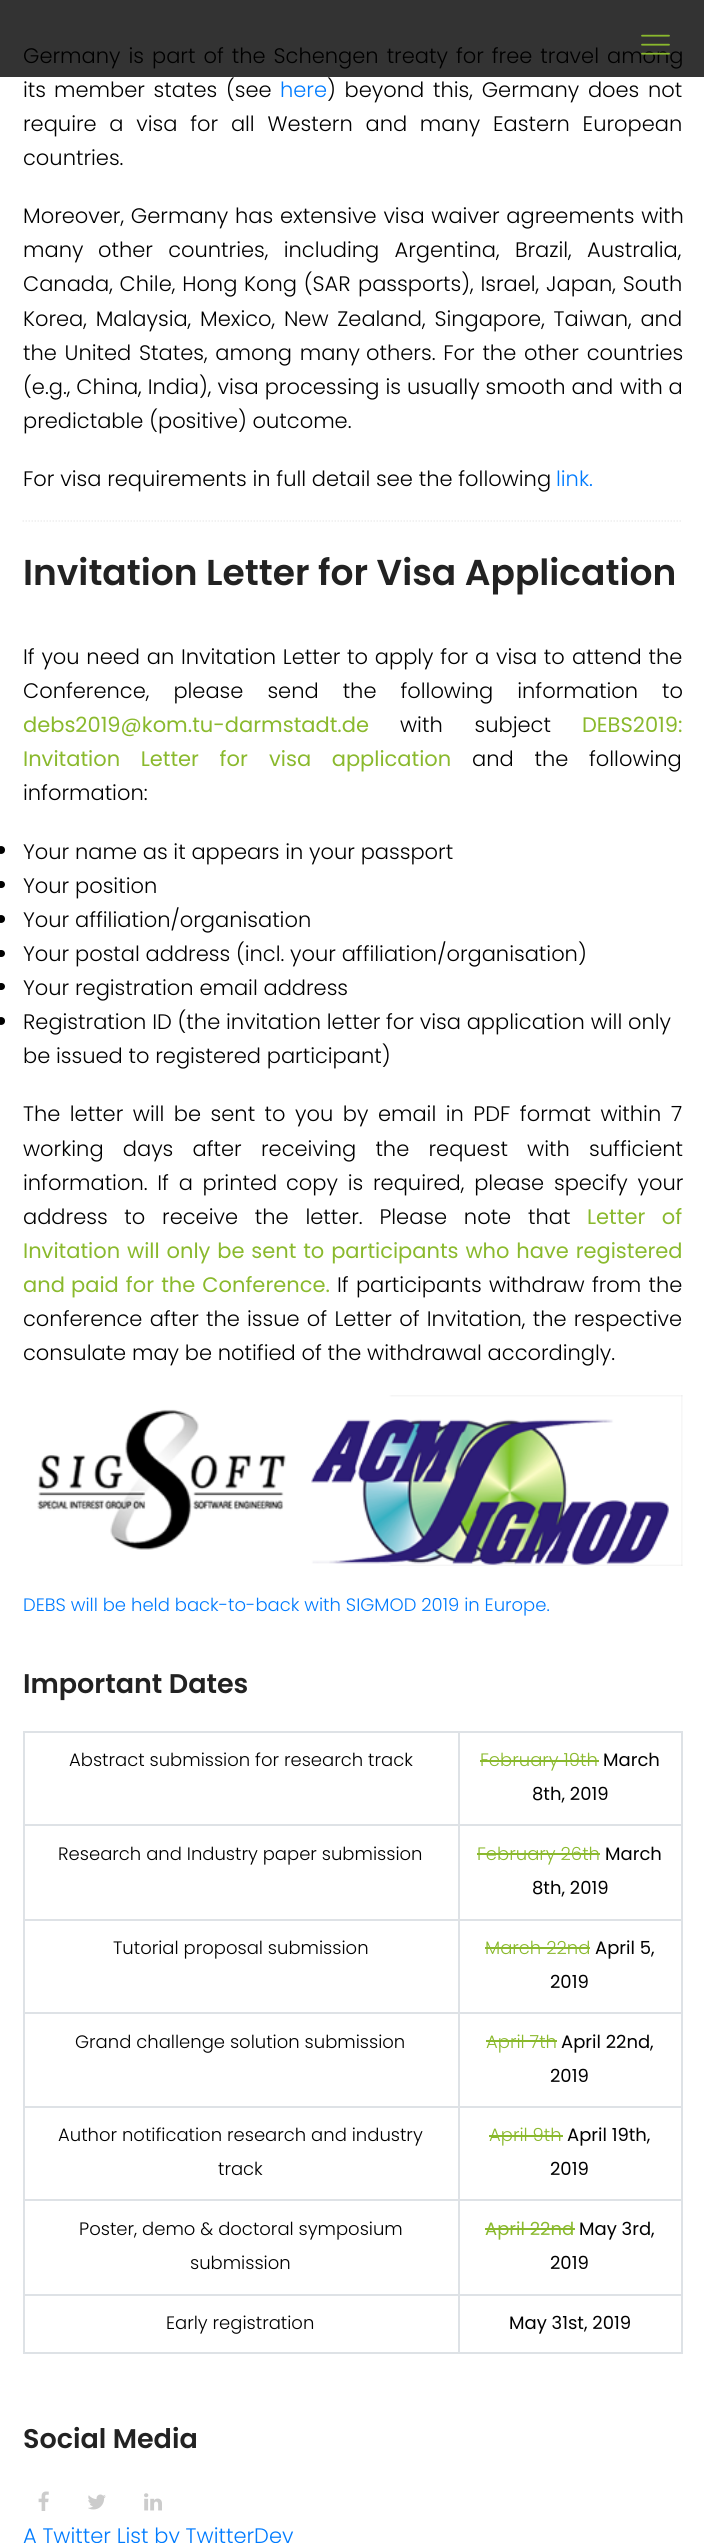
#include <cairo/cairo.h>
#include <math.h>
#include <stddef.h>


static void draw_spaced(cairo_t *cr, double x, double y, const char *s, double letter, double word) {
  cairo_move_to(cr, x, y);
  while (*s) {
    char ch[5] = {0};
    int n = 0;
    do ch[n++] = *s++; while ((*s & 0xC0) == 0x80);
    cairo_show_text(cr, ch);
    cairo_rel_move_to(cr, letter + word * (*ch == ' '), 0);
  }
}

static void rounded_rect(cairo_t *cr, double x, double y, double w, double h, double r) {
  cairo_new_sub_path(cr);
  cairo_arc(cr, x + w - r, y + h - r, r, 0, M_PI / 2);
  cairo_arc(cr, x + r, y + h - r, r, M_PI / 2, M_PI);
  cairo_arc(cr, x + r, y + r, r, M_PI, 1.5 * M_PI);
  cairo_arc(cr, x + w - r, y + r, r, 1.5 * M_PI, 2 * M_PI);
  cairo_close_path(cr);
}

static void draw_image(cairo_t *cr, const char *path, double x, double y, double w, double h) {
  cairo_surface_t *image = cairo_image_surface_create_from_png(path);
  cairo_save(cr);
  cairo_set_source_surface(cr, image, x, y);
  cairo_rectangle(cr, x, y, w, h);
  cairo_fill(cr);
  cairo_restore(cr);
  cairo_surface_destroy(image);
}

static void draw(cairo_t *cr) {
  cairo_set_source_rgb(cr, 1, 1, 1);
  cairo_paint(cr);
  cairo_set_source_rgb(cr, 51 / 255.0, 51 / 255.0, 51 / 255.0);
  cairo_rectangle(cr, 0, 0, 704, 77);
  cairo_fill(cr);
  cairo_new_path(cr);
  cairo_move_to(cr, 22.5, 521);
  cairo_line_to(cr, 682.5, 521);
  cairo_set_source_rgb(cr, 238 / 255.0, 238 / 255.0, 238 / 255.0);
  cairo_set_line_width(cr, 1.5);
  cairo_set_dash(cr, (double[]){1.5, 1.5}, 2, 0);
  cairo_stroke(cr);
  cairo_set_source_rgb(cr, 0, 0, 0);
  cairo_arc(cr, 1, 850, 4, 0, 2 * M_PI);
  cairo_fill(cr);
  rounded_rect(cr, -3, 881, 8, 7, 3.5);
  cairo_fill(cr);
  cairo_arc(cr, 1, 919, 4, 0, 2 * M_PI);
  cairo_fill(cr);
  rounded_rect(cr, -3, 950, 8, 7, 3.5);
  cairo_fill(cr);
  rounded_rect(cr, -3, 983, 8, 7, 3.5);
  cairo_fill(cr);
  cairo_arc(cr, 1, 1021, 4, 0, 2 * M_PI);
  cairo_fill(cr);
  draw_image(cr, "images/2.png", 37, 1395, 646, 171);
  cairo_set_source_rgb(cr, 222 / 255.0, 226 / 255.0, 230 / 255.0);
  cairo_rectangle(cr, 23, 1731, 660, 2);
  cairo_fill(cr);
  cairo_rectangle(cr, 681, 1731, 2, 623);
  cairo_fill(cr);
  cairo_rectangle(cr, 23, 2352, 660, 2);
  cairo_fill(cr);
  cairo_rectangle(cr, 23, 1731, 2, 623);
  cairo_fill(cr);
  cairo_rectangle(cr, 458, 1824, 225, 2);
  cairo_fill(cr);
  cairo_rectangle(cr, 458, 1919, 225, 2);
  cairo_fill(cr);
  cairo_rectangle(cr, 458, 2012, 225, 2);
  cairo_fill(cr);
  cairo_rectangle(cr, 458, 2106, 225, 2);
  cairo_fill(cr);
  cairo_rectangle(cr, 458, 2199, 225, 2);
  cairo_fill(cr);
  cairo_rectangle(cr, 458, 2294, 225, 2);
  cairo_fill(cr);
  cairo_rectangle(cr, 458, 2294, 2, 60);
  cairo_fill(cr);
  cairo_rectangle(cr, 23, 2294, 436, 2);
  cairo_fill(cr);
  cairo_rectangle(cr, 458, 2199, 2, 96);
  cairo_fill(cr);
  cairo_rectangle(cr, 23, 2199, 436, 2);
  cairo_fill(cr);
  cairo_rectangle(cr, 458, 2106, 2, 95);
  cairo_fill(cr);
  cairo_rectangle(cr, 23, 2106, 436, 2);
  cairo_fill(cr);
  cairo_rectangle(cr, 458, 2012, 2, 96);
  cairo_fill(cr);
  cairo_rectangle(cr, 23, 2012, 436, 2);
  cairo_fill(cr);
  cairo_rectangle(cr, 458, 1919, 2, 94);
  cairo_fill(cr);
  cairo_rectangle(cr, 23, 1919, 436, 2);
  cairo_fill(cr);
  cairo_rectangle(cr, 458, 1824, 2, 96);
  cairo_fill(cr);
  cairo_rectangle(cr, 23, 1824, 436, 2);
  cairo_fill(cr);
  cairo_rectangle(cr, 458, 1731, 2, 95);
  cairo_fill(cr);
  cairo_set_source_rgb(cr, 138 / 255.0, 185 / 255.0, 45 / 255.0);
  cairo_rectangle(cr, 480, 1760, 119, 2);
  cairo_fill(cr);
  cairo_rectangle(cr, 477, 1853, 123, 2);
  cairo_fill(cr);
  cairo_rectangle(cr, 485, 1947, 105, 2);
  cairo_fill(cr);
  cairo_rectangle(cr, 486, 2040, 71, 2);
  cairo_fill(cr);
  cairo_rectangle(cr, 489, 2135, 74, 2);
  cairo_fill(cr);
  cairo_rectangle(cr, 485, 2228, 90, 2);
  cairo_fill(cr);
  draw_image(cr, "images/3.png", 38, 2491, 11, 20);
  draw_image(cr, "images/4.png", 88, 2494, 18, 16);
  draw_image(cr, "images/5.png", 144, 2493, 18, 18);
  cairo_select_font_face(cr, "Poppins Light", CAIRO_FONT_SLANT_NORMAL, CAIRO_FONT_WEIGHT_NORMAL);
  cairo_set_font_size(cr, 21);
  cairo_set_source_rgb(cr, 0, 0, 0);
  draw_spaced(cr, 23, 63, "Germany is part of the Schengen treaty for free travel among", 0, 2.25);
  draw_image(cr, "images/1.png", 641, 34, 29, 21);
  cairo_move_to(cr, 23, 97);
  cairo_show_text(cr, "its");
  draw_spaced(cr, 54, 97, "member states (see", 0, 3);
  cairo_set_source_rgb(cr, 0, 123 / 255.0, 1);
  cairo_move_to(cr, 280, 97);
  cairo_show_text(cr, "here");
  cairo_set_source_rgb(cr, 0, 0, 0);
  draw_spaced(cr, 327, 97, ") beyond", 0, 3);
  draw_spaced(cr, 433, 97, "this, Germany does not", 0, 3);
  draw_spaced(cr, 23, 131, "require a visa for all Western and many Eastern European", 0, 7);
  cairo_move_to(cr, 23, 165);
  cairo_show_text(cr, "countries.");
  draw_spaced(cr, 23, 223, "Moreover, Germany has extensive visa waiver agreements with", 0, 1);
  cairo_move_to(cr, 23, 257);
  cairo_show_text(cr, "many");
  draw_spaced(cr, 98, 257, "other countries, including Argentina, Brazil, Australia,", 0, 9.5);
  draw_spaced(cr, 23, 291, "Canada, Chile, Hong Kong (SAR", 0, 1);
  draw_spaced(cr, 358, 291, "passports), Israel, Japan, South", 0, 1);
  draw_spaced(cr, 23, 326, "Korea, Malaysia, Mexico, New Zealand, Singapore, Taiwan, and", 0, 3);
  draw_spaced(cr, 23, 360, "the United States, among many", 0, 2);
  draw_spaced(cr, 366, 360, "others. For the other countries", 0, 2);
  draw_spaced(cr, 23, 394, "(e.g., China, India), visa processing is usually smooth and", 0, 0.25);
  cairo_move_to(cr, 620, 394);
  cairo_show_text(cr, "with a");
  cairo_move_to(cr, 23, 428);
  cairo_show_text(cr, "predictable (positive) outcome.");
  cairo_move_to(cr, 23, 486);
  cairo_show_text(cr, "For visa requirements in full detail see the following");
  cairo_set_source_rgb(cr, 0, 123 / 255.0, 1);
  cairo_move_to(cr, 556, 486);
  cairo_show_text(cr, "link.");
  cairo_select_font_face(cr, "Poppins SemiBold", CAIRO_FONT_SLANT_NORMAL, CAIRO_FONT_WEIGHT_NORMAL);
  cairo_set_font_size(cr, 36);
  cairo_set_source_rgb(cr, 34 / 255.0, 34 / 255.0, 34 / 255.0);
  cairo_move_to(cr, 23, 585);
  cairo_show_text(cr, "Invitation Letter for Visa Application");
  cairo_select_font_face(cr, "Poppins Light", CAIRO_FONT_SLANT_NORMAL, CAIRO_FONT_WEIGHT_NORMAL);
  cairo_set_font_size(cr, 21);
  cairo_set_source_rgb(cr, 0, 0, 0);
  draw_spaced(cr, 23, 664, "If you need an Invitation Letter to apply for a visa to", 0, 1);
  draw_spaced(cr, 572, 664, "attend the", 0, 1);
  draw_spaced(cr, 23, 698, "Conference, please send the following information to", 0, 18.25);
  cairo_select_font_face(cr, "Poppins", CAIRO_FONT_SLANT_NORMAL, CAIRO_FONT_WEIGHT_NORMAL);
  cairo_set_source_rgb(cr, 138 / 255.0, 185 / 255.0, 45 / 255.0);
  cairo_move_to(cr, 23, 732);
  cairo_show_text(cr, "debs2019@kom.tu-darmstadt.de");
  cairo_select_font_face(cr, "Poppins Light", CAIRO_FONT_SLANT_NORMAL, CAIRO_FONT_WEIGHT_NORMAL);
  cairo_set_source_rgb(cr, 0, 0, 0);
  draw_spaced(cr, 400, 732, "with subject", 0, 26);
  cairo_select_font_face(cr, "Poppins", CAIRO_FONT_SLANT_NORMAL, CAIRO_FONT_WEIGHT_NORMAL);
  cairo_set_source_rgb(cr, 138 / 255.0, 185 / 255.0, 45 / 255.0);
  cairo_move_to(cr, 582, 732);
  cairo_show_text(cr, "DEBS2019:");
  draw_spaced(cr, 23, 766, "Invitation Letter for", 0, 15);
  draw_spaced(cr, 269, 766, "visa application", 0, 15);
  cairo_select_font_face(cr, "Poppins Light", CAIRO_FONT_SLANT_NORMAL, CAIRO_FONT_WEIGHT_NORMAL);
  cairo_set_source_rgb(cr, 0, 0, 0);
  draw_spaced(cr, 472, 766, "and the following", 0, 15);
  cairo_move_to(cr, 23, 800);
  cairo_show_text(cr, "information:");
  cairo_move_to(cr, 23, 859);
  cairo_show_text(cr, "Your name as it appears in your passport");
  cairo_move_to(cr, 23, 893);
  cairo_show_text(cr, "Your position");
  cairo_move_to(cr, 23, 927);
  cairo_show_text(cr, "Your affiliation/organisation");
  cairo_move_to(cr, 23, 961);
  cairo_show_text(cr, "Your postal address (incl. your affiliation/organisation)");
  cairo_move_to(cr, 23, 995);
  cairo_show_text(cr, "Your registration email address");
  cairo_move_to(cr, 23, 1029);
  cairo_show_text(cr, "Registration ID (the invitation letter for visa application will only");
  cairo_move_to(cr, 23, 1063);
  cairo_show_text(cr, "be issued to registered participant)");
  draw_spaced(cr, 23, 1121, "The letter will be sent to you by email in PDF format within", 0, 3.75);
  cairo_move_to(cr, 671, 1121);
  cairo_show_text(cr, "7");
  draw_spaced(cr, 23, 1156, "working days after receiving the request with sufficient", 0, 13.5);
  draw_spaced(cr, 23, 1190, "information. If a printed", 0, 4);
  draw_spaced(cr, 286, 1190, "copy is required, please specify your", 0, 4);
  draw_spaced(cr, 23, 1224, "address to receive the letter. Please note", 0, 11);
  cairo_move_to(cr, 528, 1224);
  cairo_show_text(cr, "that");
  cairo_select_font_face(cr, "Poppins", CAIRO_FONT_SLANT_NORMAL, CAIRO_FONT_WEIGHT_NORMAL);
  cairo_set_source_rgb(cr, 138 / 255.0, 185 / 255.0, 45 / 255.0);
  draw_spaced(cr, 587, 1224, "Letter of", 0, 11);
  draw_spaced(cr, 23, 1258, "Invitation will only be sent to participants who have registered", 0, 1.25);
  cairo_move_to(cr, 23, 1292);
  cairo_show_text(cr, "and");
  draw_spaced(cr, 71, 1292, "paid for the Conference.", 0, 1.5);
  cairo_select_font_face(cr, "Poppins Light", CAIRO_FONT_SLANT_NORMAL, CAIRO_FONT_WEIGHT_NORMAL);
  cairo_set_source_rgb(cr, 0, 0, 0);
  draw_spaced(cr, 337, 1292, "If participants withdraw from the", 0, 1.5);
  draw_spaced(cr, 23, 1326, "conference after", 0, 1.5);
  cairo_move_to(cr, 206, 1326);
  cairo_show_text(cr, "the");
  draw_spaced(cr, 247, 1326, "issue of Letter of Invitation, the respective", 0, 1.5);
  cairo_move_to(cr, 23, 1360);
  cairo_show_text(cr, "consulate may be notified of the withdrawal accordingly.");
  cairo_set_font_size(cr, 18);
  cairo_set_source_rgb(cr, 0, 123 / 255.0, 1);
  cairo_move_to(cr, 23, 1611);
  cairo_show_text(cr, "DEBS will be held back-to-back with SIGMOD 2019 in Europe.");
  cairo_select_font_face(cr, "Poppins SemiBold", CAIRO_FONT_SLANT_NORMAL, CAIRO_FONT_WEIGHT_NORMAL);
  cairo_set_font_size(cr, 27);
  cairo_set_source_rgb(cr, 34 / 255.0, 34 / 255.0, 34 / 255.0);
  cairo_move_to(cr, 23, 1693);
  cairo_show_text(cr, "Important Dates");
  cairo_select_font_face(cr, "Poppins Light", CAIRO_FONT_SLANT_NORMAL, CAIRO_FONT_WEIGHT_NORMAL);
  cairo_set_font_size(cr, 18);
  cairo_set_source_rgb(cr, 0, 0, 0);
  cairo_move_to(cr, 69, 1766);
  cairo_show_text(cr, "Abstract submission for research track");
  cairo_set_source_rgb(cr, 138 / 255.0, 185 / 255.0, 45 / 255.0);
  cairo_move_to(cr, 480, 1766);
  cairo_show_text(cr, "February 19th");
  cairo_select_font_face(cr, "Poppins", CAIRO_FONT_SLANT_NORMAL, CAIRO_FONT_WEIGHT_NORMAL);
  cairo_set_source_rgb(cr, 0, 0, 0);
  cairo_move_to(cr, 603, 1766);
  cairo_show_text(cr, "March");
  cairo_move_to(cr, 532, 1800);
  cairo_show_text(cr, "8th, 2019");
  cairo_select_font_face(cr, "Poppins Light", CAIRO_FONT_SLANT_NORMAL, CAIRO_FONT_WEIGHT_NORMAL);
  cairo_move_to(cr, 58, 1860);
  cairo_show_text(cr, "Research and Industry paper submission");
  cairo_set_source_rgb(cr, 138 / 255.0, 185 / 255.0, 45 / 255.0);
  cairo_move_to(cr, 477, 1860);
  cairo_show_text(cr, "February 26th");
  cairo_select_font_face(cr, "Poppins", CAIRO_FONT_SLANT_NORMAL, CAIRO_FONT_WEIGHT_NORMAL);
  cairo_set_source_rgb(cr, 0, 0, 0);
  cairo_move_to(cr, 605, 1860);
  cairo_show_text(cr, "March");
  cairo_move_to(cr, 532, 1894);
  cairo_show_text(cr, "8th, 2019");
  cairo_select_font_face(cr, "Poppins Light", CAIRO_FONT_SLANT_NORMAL, CAIRO_FONT_WEIGHT_NORMAL);
  cairo_move_to(cr, 113, 1954);
  cairo_show_text(cr, "Tutorial proposal submission");
  cairo_set_source_rgb(cr, 138 / 255.0, 185 / 255.0, 45 / 255.0);
  cairo_move_to(cr, 485, 1954);
  cairo_show_text(cr, "March 22nd");
  cairo_select_font_face(cr, "Poppins", CAIRO_FONT_SLANT_NORMAL, CAIRO_FONT_WEIGHT_NORMAL);
  cairo_set_source_rgb(cr, 0, 0, 0);
  cairo_move_to(cr, 595, 1954);
  cairo_show_text(cr, "April 5,");
  cairo_move_to(cr, 550, 1988);
  cairo_show_text(cr, "2019");
  cairo_select_font_face(cr, "Poppins Light", CAIRO_FONT_SLANT_NORMAL, CAIRO_FONT_WEIGHT_NORMAL);
  cairo_move_to(cr, 75, 2048);
  cairo_show_text(cr, "Grand challenge solution submission");
  cairo_set_source_rgb(cr, 138 / 255.0, 185 / 255.0, 45 / 255.0);
  cairo_move_to(cr, 486, 2048);
  cairo_show_text(cr, "April 7th");
  cairo_select_font_face(cr, "Poppins", CAIRO_FONT_SLANT_NORMAL, CAIRO_FONT_WEIGHT_NORMAL);
  cairo_set_source_rgb(cr, 0, 0, 0);
  cairo_move_to(cr, 561, 2048);
  cairo_show_text(cr, "April 22nd,");
  cairo_move_to(cr, 550, 2082);
  cairo_show_text(cr, "2019");
  cairo_select_font_face(cr, "Poppins Light", CAIRO_FONT_SLANT_NORMAL, CAIRO_FONT_WEIGHT_NORMAL);
  cairo_move_to(cr, 58, 2141);
  cairo_show_text(cr, "Author notification research and industry");
  cairo_move_to(cr, 218, 2175);
  cairo_show_text(cr, "track");
  cairo_set_source_rgb(cr, 138 / 255.0, 185 / 255.0, 45 / 255.0);
  cairo_move_to(cr, 489, 2141);
  cairo_show_text(cr, "April 9th");
  cairo_select_font_face(cr, "Poppins", CAIRO_FONT_SLANT_NORMAL, CAIRO_FONT_WEIGHT_NORMAL);
  cairo_set_source_rgb(cr, 0, 0, 0);
  cairo_move_to(cr, 567, 2141);
  cairo_show_text(cr, "April 19th,");
  cairo_move_to(cr, 550, 2175);
  cairo_show_text(cr, "2019");
  cairo_select_font_face(cr, "Poppins Light", CAIRO_FONT_SLANT_NORMAL, CAIRO_FONT_WEIGHT_NORMAL);
  cairo_move_to(cr, 79, 2235);
  cairo_show_text(cr, "Poster, demo & doctoral symposium");
  cairo_move_to(cr, 190, 2269);
  cairo_show_text(cr, "submission");
  cairo_select_font_face(cr, "Poppins", CAIRO_FONT_SLANT_NORMAL, CAIRO_FONT_WEIGHT_NORMAL);
  cairo_set_source_rgb(cr, 138 / 255.0, 185 / 255.0, 45 / 255.0);
  cairo_move_to(cr, 485, 2235);
  cairo_show_text(cr, "April 22nd");
  cairo_set_source_rgb(cr, 0, 0, 0);
  cairo_move_to(cr, 579, 2235);
  cairo_show_text(cr, "May 3rd,");
  cairo_move_to(cr, 550, 2269);
  cairo_show_text(cr, "2019");
  cairo_select_font_face(cr, "Poppins Light", CAIRO_FONT_SLANT_NORMAL, CAIRO_FONT_WEIGHT_NORMAL);
  cairo_move_to(cr, 166, 2329);
  cairo_show_text(cr, "Early registration");
  cairo_select_font_face(cr, "Poppins", CAIRO_FONT_SLANT_NORMAL, CAIRO_FONT_WEIGHT_NORMAL);
  cairo_move_to(cr, 509, 2329);
  cairo_show_text(cr, "May 31st, 2019");
  cairo_select_font_face(cr, "Poppins SemiBold", CAIRO_FONT_SLANT_NORMAL, CAIRO_FONT_WEIGHT_NORMAL);
  cairo_set_font_size(cr, 27);
  cairo_set_source_rgb(cr, 34 / 255.0, 34 / 255.0, 34 / 255.0);
  cairo_move_to(cr, 23, 2448);
  cairo_show_text(cr, "Social Media");
  cairo_select_font_face(cr, "Poppins Light", CAIRO_FONT_SLANT_NORMAL, CAIRO_FONT_WEIGHT_NORMAL);
  cairo_set_font_size(cr, 21);
  cairo_set_source_rgb(cr, 0, 123 / 255.0, 1);
  cairo_move_to(cr, 23, 2543);
  cairo_show_text(cr, "A Twitter List by TwitterDev");
}

int main(void) {
  cairo_surface_t *surface = cairo_image_surface_create(CAIRO_FORMAT_RGB24, 704, 2543);
  cairo_t *cr = cairo_create(surface);
  cairo_font_options_t *options = cairo_font_options_create();
  cairo_font_options_set_hint_metrics(options, CAIRO_HINT_METRICS_OFF);
  cairo_font_options_set_hint_style(options, CAIRO_HINT_STYLE_NONE);
  cairo_set_font_options(cr, options);
  cairo_set_miter_limit(cr, 4);
  draw(cr);
  cairo_surface_write_to_png(surface, "out.png");
  cairo_font_options_destroy(options);
  cairo_destroy(cr);
  cairo_surface_destroy(surface);
  return 0;
}
